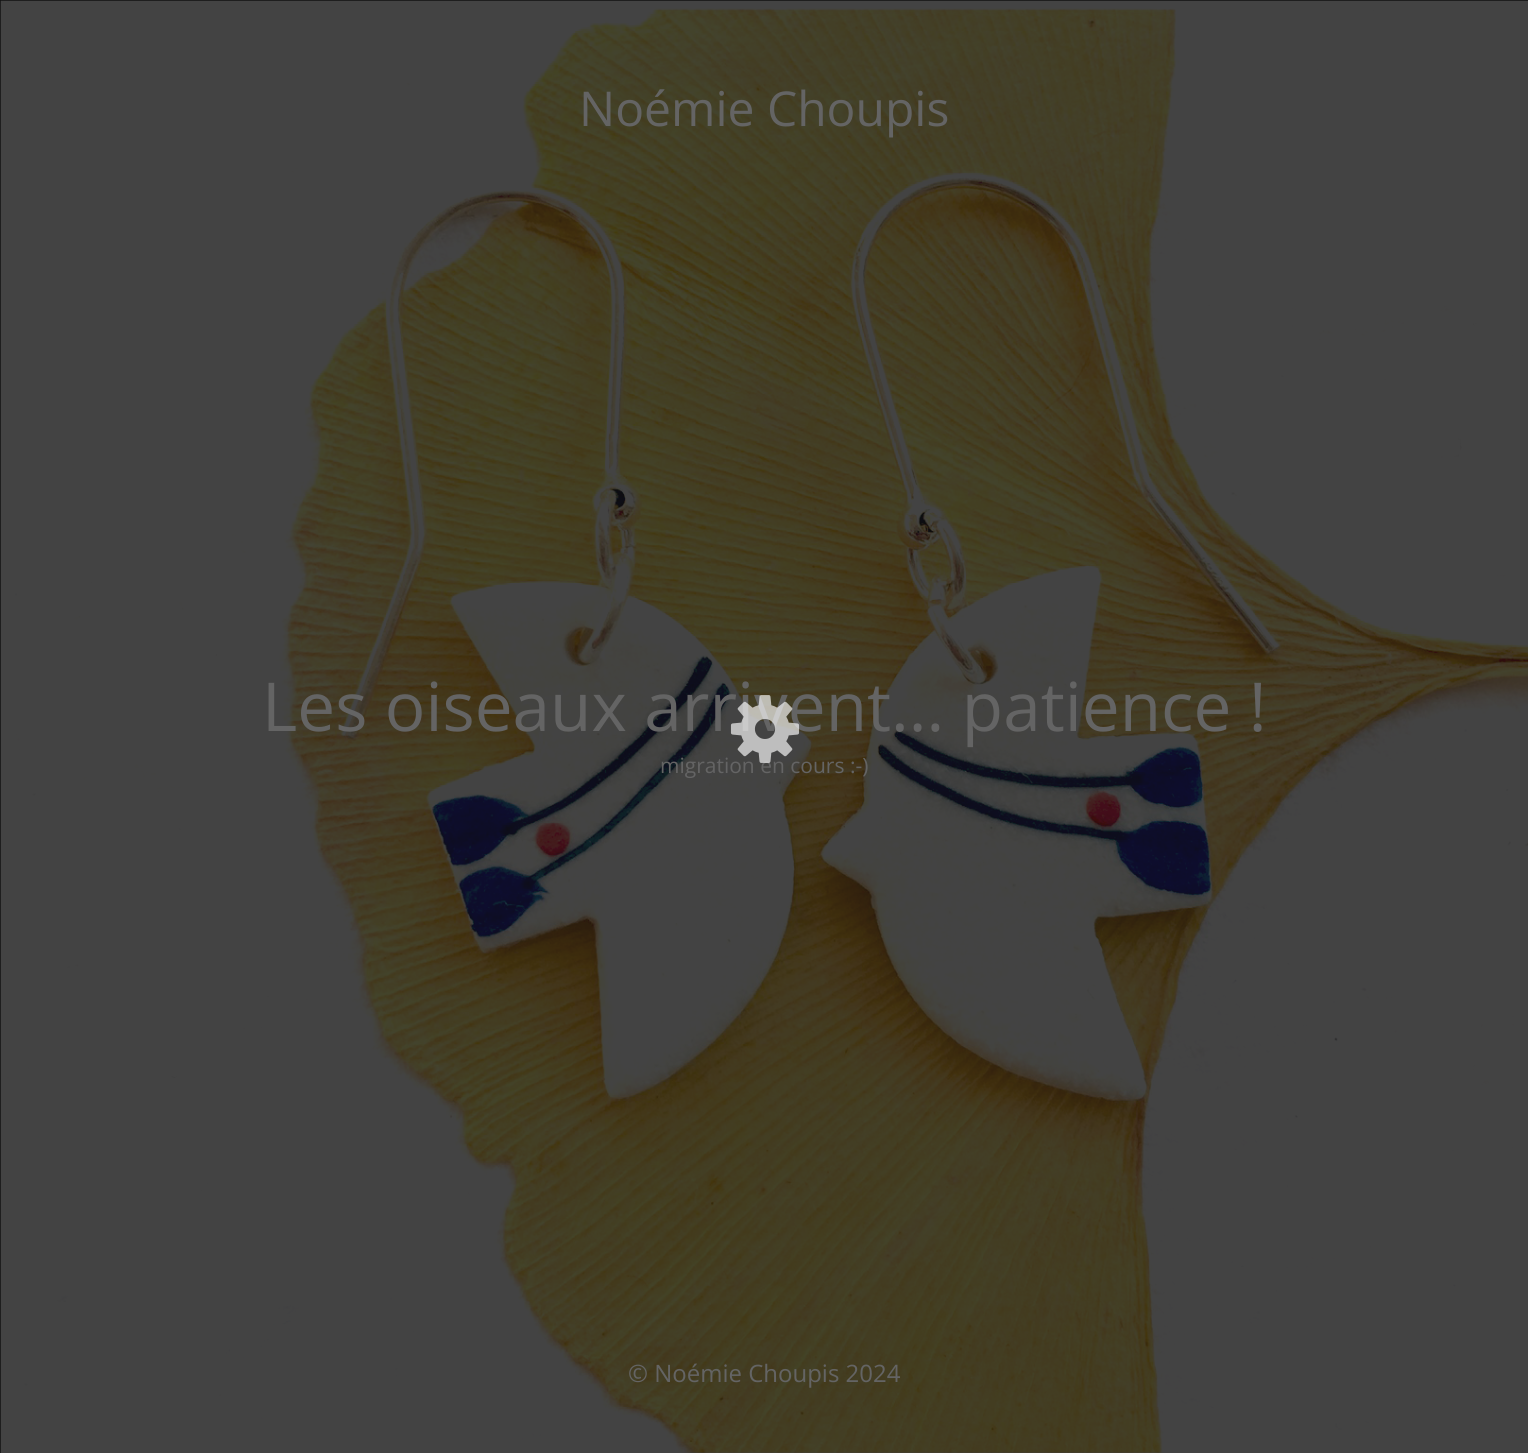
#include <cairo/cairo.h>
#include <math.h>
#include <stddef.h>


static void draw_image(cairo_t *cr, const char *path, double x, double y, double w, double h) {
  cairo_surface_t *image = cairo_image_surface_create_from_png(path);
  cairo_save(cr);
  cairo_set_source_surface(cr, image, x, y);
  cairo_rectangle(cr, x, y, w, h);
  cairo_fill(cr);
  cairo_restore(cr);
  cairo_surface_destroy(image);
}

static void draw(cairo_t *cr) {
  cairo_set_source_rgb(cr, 17 / 255.0, 17 / 255.0, 17 / 255.0);
  cairo_paint(cr);
  draw_image(cr, "images/1.png", 0, 0, 1528, 1453);
  cairo_select_font_face(cr, "Open Sans", CAIRO_FONT_SLANT_NORMAL, CAIRO_FONT_WEIGHT_NORMAL);
  cairo_set_font_size(cr, 48);
  cairo_set_source_rgb(cr, 100 / 255.0, 100 / 255.0, 100 / 255.0);
  cairo_move_to(cr, 579, 126);
  cairo_show_text(cr, "Noémie Choupis");
  cairo_set_font_size(cr, 67.5);
  cairo_move_to(cr, 262, 731);
  cairo_show_text(cr, "Les oiseaux arrivent... patience !");
  cairo_set_font_size(cr, 21);
  cairo_move_to(cr, 660, 773);
  cairo_show_text(cr, "migration en cours :-)");
  draw_image(cr, "images/2.png", 730, 695, 70, 68);
  cairo_set_font_size(cr, 24);
  cairo_move_to(cr, 628, 1382);
  cairo_show_text(cr, "© Noémie Choupis 2024");
}

int main(void) {
  cairo_surface_t *surface = cairo_image_surface_create(CAIRO_FORMAT_RGB24, 1528, 1453);
  cairo_t *cr = cairo_create(surface);
  cairo_font_options_t *options = cairo_font_options_create();
  cairo_font_options_set_hint_metrics(options, CAIRO_HINT_METRICS_OFF);
  cairo_font_options_set_hint_style(options, CAIRO_HINT_STYLE_NONE);
  cairo_set_font_options(cr, options);
  cairo_set_miter_limit(cr, 4);
  draw(cr);
  cairo_surface_write_to_png(surface, "out.png");
  cairo_font_options_destroy(options);
  cairo_destroy(cr);
  cairo_surface_destroy(surface);
  return 0;
}
